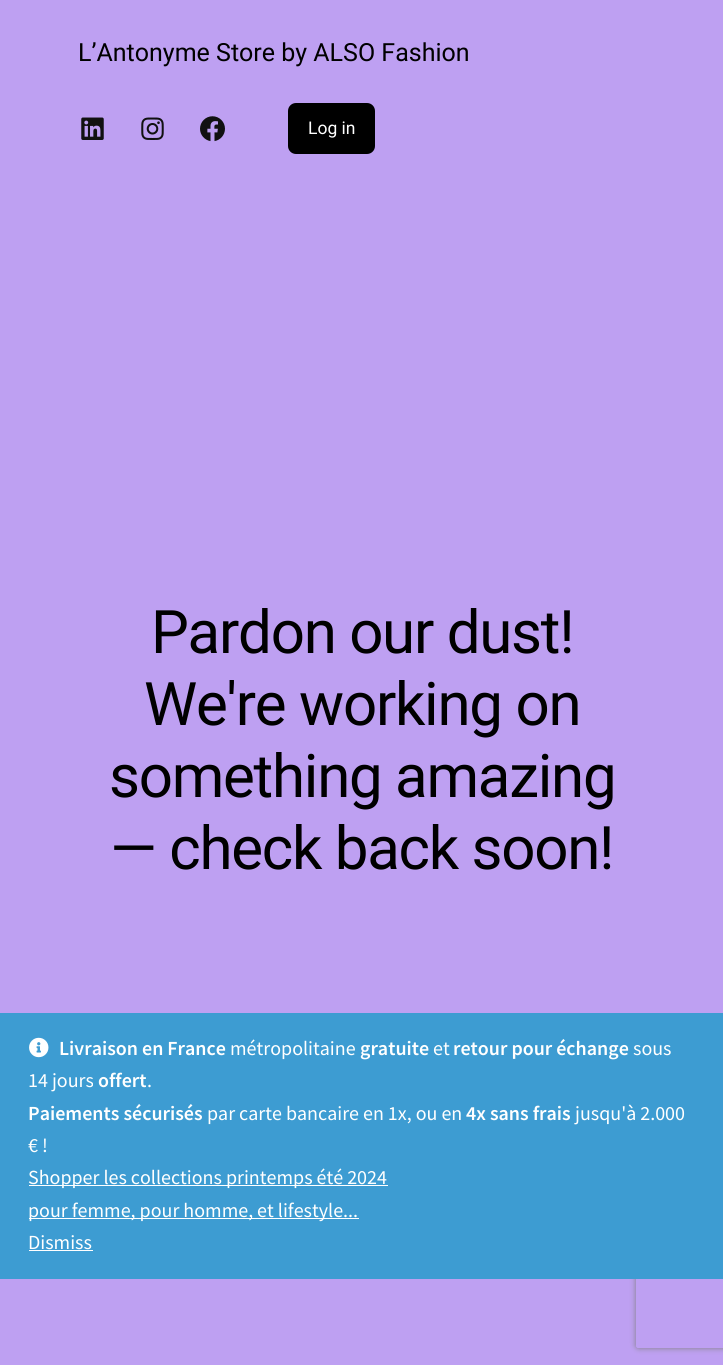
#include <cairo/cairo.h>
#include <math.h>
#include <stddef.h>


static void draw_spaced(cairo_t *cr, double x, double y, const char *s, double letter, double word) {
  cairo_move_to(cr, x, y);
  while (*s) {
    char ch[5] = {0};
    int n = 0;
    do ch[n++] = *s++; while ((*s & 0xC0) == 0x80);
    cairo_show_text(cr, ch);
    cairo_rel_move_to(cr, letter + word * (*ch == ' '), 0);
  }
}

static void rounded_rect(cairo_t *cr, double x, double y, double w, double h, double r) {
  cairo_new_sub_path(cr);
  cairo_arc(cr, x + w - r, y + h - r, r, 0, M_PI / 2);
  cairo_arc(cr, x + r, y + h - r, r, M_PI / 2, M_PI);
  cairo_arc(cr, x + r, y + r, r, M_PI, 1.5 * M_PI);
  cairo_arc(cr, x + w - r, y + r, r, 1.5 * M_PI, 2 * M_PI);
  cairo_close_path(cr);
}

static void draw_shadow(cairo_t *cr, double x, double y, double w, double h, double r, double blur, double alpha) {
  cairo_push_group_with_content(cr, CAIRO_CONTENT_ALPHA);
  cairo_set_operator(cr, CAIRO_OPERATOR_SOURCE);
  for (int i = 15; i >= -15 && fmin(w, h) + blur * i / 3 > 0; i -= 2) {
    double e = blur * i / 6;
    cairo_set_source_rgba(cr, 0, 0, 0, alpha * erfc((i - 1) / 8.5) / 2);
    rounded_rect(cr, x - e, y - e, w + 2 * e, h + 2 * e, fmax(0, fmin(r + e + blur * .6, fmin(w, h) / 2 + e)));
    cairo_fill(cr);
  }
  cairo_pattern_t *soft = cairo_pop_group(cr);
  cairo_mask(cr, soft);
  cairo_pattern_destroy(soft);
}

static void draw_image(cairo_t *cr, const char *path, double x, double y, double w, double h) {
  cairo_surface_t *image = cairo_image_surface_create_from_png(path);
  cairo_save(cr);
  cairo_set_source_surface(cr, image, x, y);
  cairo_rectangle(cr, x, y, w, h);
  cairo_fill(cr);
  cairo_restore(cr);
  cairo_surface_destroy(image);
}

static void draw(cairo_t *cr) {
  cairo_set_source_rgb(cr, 190 / 255.0, 160 / 255.0, 242 / 255.0);
  cairo_paint(cr);
  draw_image(cr, "images/1.png", 81, 117, 23, 23);
  draw_image(cr, "images/2.png", 141, 117, 23, 23);
  draw_image(cr, "images/3.png", 200, 116, 25, 26);
  cairo_set_source_rgb(cr, 0, 0, 0);
  rounded_rect(cr, 288, 103, 87, 51, 8);
  cairo_fill(cr);
  cairo_save(cr);
  cairo_set_fill_rule(cr, CAIRO_FILL_RULE_EVEN_ODD);
  cairo_new_path(cr);
  cairo_move_to(cr, 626, 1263);
  cairo_line_to(cr, 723, 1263);
  cairo_line_to(cr, 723, 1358);
  cairo_line_to(cr, 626, 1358);
  cairo_close_path(cr);
  cairo_move_to(cr, 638.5, 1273);
  cairo_line_to(cr, 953.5, 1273);
  cairo_curve_to(cr, 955, 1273, 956, 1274, 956, 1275.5);
  cairo_line_to(cr, 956, 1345.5);
  cairo_curve_to(cr, 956, 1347, 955, 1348, 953.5, 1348);
  cairo_line_to(cr, 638.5, 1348);
  cairo_curve_to(cr, 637, 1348, 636, 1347, 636, 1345.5);
  cairo_line_to(cr, 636, 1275.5);
  cairo_curve_to(cr, 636, 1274, 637, 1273, 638.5, 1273);
  cairo_close_path(cr);
  cairo_clip(cr);
  cairo_set_source_rgb(cr, 128 / 255.0, 128 / 255.0, 128 / 255.0);
  draw_shadow(cr, 636, 1273, 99, 75, 2.5, 3, 1);
  cairo_restore(cr);
  cairo_set_source_rgb(cr, 61 / 255.0, 156 / 255.0, 210 / 255.0);
  cairo_rectangle(cr, 0, 1013, 723, 266);
  cairo_fill(cr);
  draw_image(cr, "images/4.png", 29, 1037, 20, 21);
  cairo_set_source_rgb(cr, 1, 1, 1);
  cairo_rectangle(cr, 29, 1185, 359, 1);
  cairo_fill(cr);
  cairo_rectangle(cr, 29, 1218, 330, 1);
  cairo_fill(cr);
  cairo_rectangle(cr, 29, 1250, 64, 1);
  cairo_fill(cr);
  cairo_select_font_face(cr, "Roboto", CAIRO_FONT_SLANT_NORMAL, CAIRO_FONT_WEIGHT_NORMAL);
  cairo_set_font_size(cr, 25);
  cairo_set_source_rgb(cr, 0, 0, 0);
  cairo_move_to(cr, 78, 61);
  cairo_show_text(cr, "L’Antonyme Store by ALSO Fashion");
  cairo_set_font_size(cr, 17.5);
  cairo_set_source_rgb(cr, 1, 1, 1);
  cairo_move_to(cr, 308, 134);
  cairo_show_text(cr, "Log in");
  cairo_set_font_size(cr, 60);
  cairo_set_source_rgb(cr, 0, 0, 0);
  draw_spaced(cr, 151, 653, "Pardon our dust!", -1.25, 0);
  draw_spaced(cr, 144, 725, "We're working on", -1.25, 0);
  draw_spaced(cr, 109, 797, "something amazing", -1.25, 0);
  draw_spaced(cr, 110, 869, "— check back soon!", -1.25, 0);
  cairo_select_font_face(cr, "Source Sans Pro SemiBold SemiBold", CAIRO_FONT_SLANT_NORMAL, CAIRO_FONT_WEIGHT_NORMAL);
  cairo_set_font_size(cr, 20);
  cairo_set_source_rgb(cr, 1, 1, 1);
  cairo_move_to(cr, 59, 1055);
  cairo_show_text(cr, "Livraison en France");
  cairo_select_font_face(cr, "Source Sans Pro", CAIRO_FONT_SLANT_NORMAL, CAIRO_FONT_WEIGHT_NORMAL);
  cairo_move_to(cr, 230, 1055);
  cairo_show_text(cr, "métropolitaine");
  cairo_select_font_face(cr, "Source Sans Pro SemiBold SemiBold", CAIRO_FONT_SLANT_NORMAL, CAIRO_FONT_WEIGHT_NORMAL);
  cairo_move_to(cr, 360, 1055);
  cairo_show_text(cr, "gratuite");
  cairo_select_font_face(cr, "Source Sans Pro", CAIRO_FONT_SLANT_NORMAL, CAIRO_FONT_WEIGHT_NORMAL);
  cairo_move_to(cr, 433, 1055);
  cairo_show_text(cr, "et");
  cairo_select_font_face(cr, "Source Sans Pro SemiBold SemiBold", CAIRO_FONT_SLANT_NORMAL, CAIRO_FONT_WEIGHT_NORMAL);
  cairo_move_to(cr, 453, 1055);
  cairo_show_text(cr, "retour pour échange");
  cairo_select_font_face(cr, "Source Sans Pro", CAIRO_FONT_SLANT_NORMAL, CAIRO_FONT_WEIGHT_NORMAL);
  cairo_move_to(cr, 633, 1055);
  cairo_show_text(cr, "sous");
  cairo_move_to(cr, 28, 1087);
  cairo_show_text(cr, "14 jours");
  cairo_select_font_face(cr, "Source Sans Pro SemiBold SemiBold", CAIRO_FONT_SLANT_NORMAL, CAIRO_FONT_WEIGHT_NORMAL);
  cairo_move_to(cr, 98, 1087);
  cairo_show_text(cr, "offert");
  cairo_select_font_face(cr, "Source Sans Pro", CAIRO_FONT_SLANT_NORMAL, CAIRO_FONT_WEIGHT_NORMAL);
  cairo_move_to(cr, 147, 1087);
  cairo_show_text(cr, ".");
  cairo_select_font_face(cr, "Source Sans Pro SemiBold SemiBold", CAIRO_FONT_SLANT_NORMAL, CAIRO_FONT_WEIGHT_NORMAL);
  cairo_move_to(cr, 28, 1120);
  cairo_show_text(cr, "Paiements sécurisés");
  cairo_select_font_face(cr, "Source Sans Pro", CAIRO_FONT_SLANT_NORMAL, CAIRO_FONT_WEIGHT_NORMAL);
  cairo_move_to(cr, 207, 1120);
  cairo_show_text(cr, "par carte bancaire en 1x, ou en");
  cairo_select_font_face(cr, "Source Sans Pro SemiBold SemiBold", CAIRO_FONT_SLANT_NORMAL, CAIRO_FONT_WEIGHT_NORMAL);
  cairo_move_to(cr, 466, 1120);
  cairo_show_text(cr, "4x sans frais");
  cairo_select_font_face(cr, "Source Sans Pro", CAIRO_FONT_SLANT_NORMAL, CAIRO_FONT_WEIGHT_NORMAL);
  cairo_move_to(cr, 575, 1120);
  cairo_show_text(cr, "jusqu'à 2.000");
  cairo_move_to(cr, 28, 1152);
  cairo_show_text(cr, "€ !");
  cairo_move_to(cr, 28, 1184);
  cairo_show_text(cr, "Shopper les collections printemps été 2024");
  cairo_move_to(cr, 28, 1217);
  cairo_show_text(cr, "pour femme, pour homme, et lifestyle...");
  cairo_move_to(cr, 28, 1249);
  cairo_show_text(cr, "Dismiss");
}

int main(void) {
  cairo_surface_t *surface = cairo_image_surface_create(CAIRO_FORMAT_RGB24, 723, 1365);
  cairo_t *cr = cairo_create(surface);
  cairo_font_options_t *options = cairo_font_options_create();
  cairo_font_options_set_hint_metrics(options, CAIRO_HINT_METRICS_OFF);
  cairo_font_options_set_hint_style(options, CAIRO_HINT_STYLE_NONE);
  cairo_set_font_options(cr, options);
  cairo_set_miter_limit(cr, 4);
  draw(cr);
  cairo_surface_write_to_png(surface, "out.png");
  cairo_font_options_destroy(options);
  cairo_destroy(cr);
  cairo_surface_destroy(surface);
  return 0;
}
